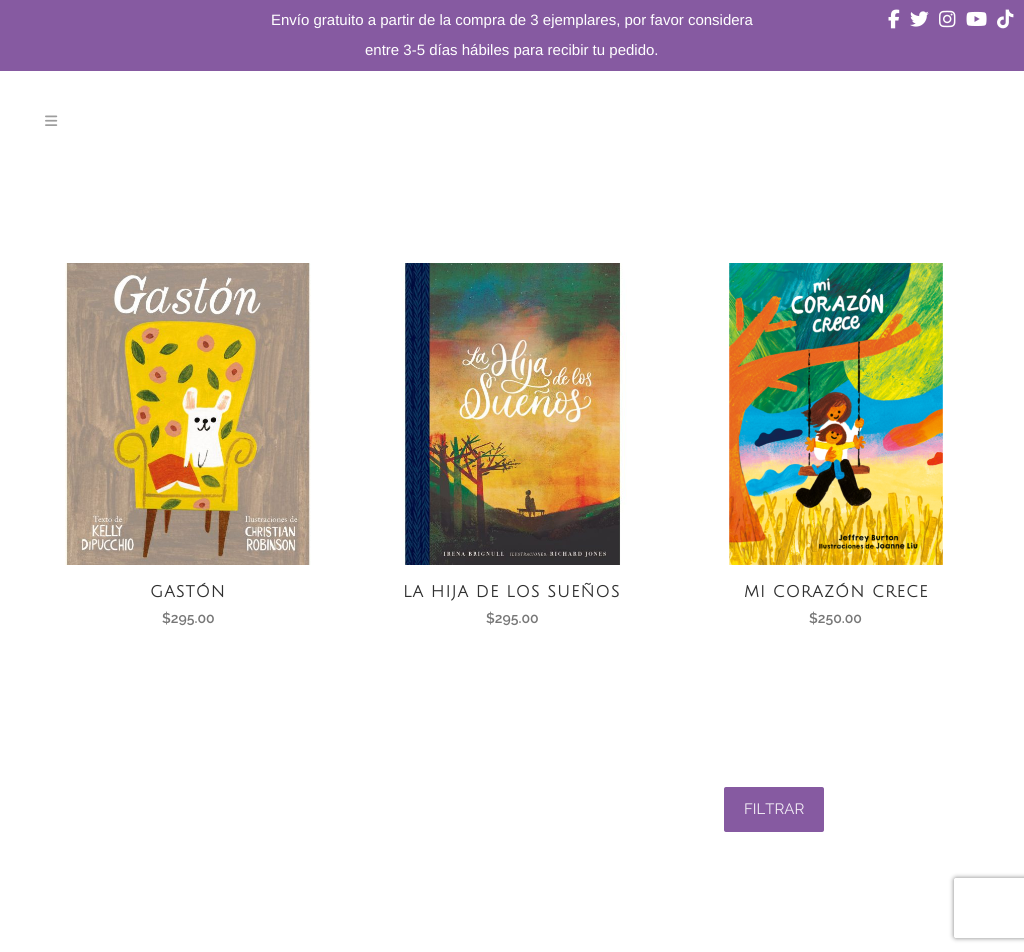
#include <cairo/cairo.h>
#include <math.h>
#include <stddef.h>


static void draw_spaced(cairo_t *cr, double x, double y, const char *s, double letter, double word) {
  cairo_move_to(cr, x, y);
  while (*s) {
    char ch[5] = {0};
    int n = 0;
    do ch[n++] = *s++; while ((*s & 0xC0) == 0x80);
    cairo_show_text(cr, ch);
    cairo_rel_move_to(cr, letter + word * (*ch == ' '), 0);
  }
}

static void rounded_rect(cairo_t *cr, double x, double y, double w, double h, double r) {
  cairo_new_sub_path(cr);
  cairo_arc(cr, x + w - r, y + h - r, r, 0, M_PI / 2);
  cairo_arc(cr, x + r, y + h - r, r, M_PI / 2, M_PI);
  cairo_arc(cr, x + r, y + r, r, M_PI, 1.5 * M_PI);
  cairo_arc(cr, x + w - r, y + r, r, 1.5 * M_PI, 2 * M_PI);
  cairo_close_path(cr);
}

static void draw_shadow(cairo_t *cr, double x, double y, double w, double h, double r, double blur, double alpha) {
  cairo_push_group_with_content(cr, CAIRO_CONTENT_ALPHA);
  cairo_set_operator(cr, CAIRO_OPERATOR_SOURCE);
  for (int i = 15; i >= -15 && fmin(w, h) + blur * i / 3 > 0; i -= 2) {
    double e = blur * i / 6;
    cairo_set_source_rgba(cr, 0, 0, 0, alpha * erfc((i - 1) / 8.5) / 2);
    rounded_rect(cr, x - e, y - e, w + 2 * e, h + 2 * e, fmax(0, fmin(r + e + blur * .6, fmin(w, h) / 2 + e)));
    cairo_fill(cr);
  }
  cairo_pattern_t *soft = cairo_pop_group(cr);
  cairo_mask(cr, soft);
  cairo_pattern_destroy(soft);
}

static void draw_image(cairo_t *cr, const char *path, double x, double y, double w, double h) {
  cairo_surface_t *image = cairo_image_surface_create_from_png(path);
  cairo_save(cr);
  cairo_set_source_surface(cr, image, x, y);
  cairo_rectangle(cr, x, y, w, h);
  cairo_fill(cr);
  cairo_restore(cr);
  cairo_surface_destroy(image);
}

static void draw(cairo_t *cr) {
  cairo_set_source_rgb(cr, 1, 1, 1);
  cairo_paint(cr);
  cairo_set_source_rgb(cr, 134 / 255.0, 90 / 255.0, 161 / 255.0);
  cairo_rectangle(cr, 0, 0, 1024, 71);
  cairo_fill(cr);
  draw_image(cr, "images/1.png", 888, 9, 12, 20);
  draw_image(cr, "images/2.png", 910, 11, 19, 16);
  draw_image(cr, "images/3.png", 939, 10, 17, 18);
  draw_image(cr, "images/4.png", 966, 11, 21, 15);
  draw_image(cr, "images/5.png", 997, 9, 17, 20);
  draw_image(cr, "images/6.png", 45, 115, 13, 11);
  draw_image(cr, "images/7.png", 65, 263, 246, 302);
  draw_image(cr, "images/8.png", 401, 263, 226, 302);
  draw_image(cr, "images/9.png", 729, 263, 214, 302);
  rounded_rect(cr, 724, 787, 100, 45, 2);
  cairo_fill(cr);
  cairo_save(cr);
  cairo_set_fill_rule(cr, CAIRO_FILL_RULE_EVEN_ODD);
  cairo_new_path(cr);
  cairo_move_to(cr, 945, 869);
  cairo_line_to(cr, 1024, 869);
  cairo_line_to(cr, 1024, 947);
  cairo_line_to(cr, 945, 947);
  cairo_close_path(cr);
  cairo_move_to(cr, 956, 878);
  cairo_line_to(cr, 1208, 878);
  cairo_curve_to(cr, 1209, 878, 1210, 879, 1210, 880);
  cairo_line_to(cr, 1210, 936);
  cairo_curve_to(cr, 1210, 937, 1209, 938, 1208, 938);
  cairo_line_to(cr, 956, 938);
  cairo_curve_to(cr, 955, 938, 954, 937, 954, 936);
  cairo_line_to(cr, 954, 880);
  cairo_curve_to(cr, 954, 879, 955, 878, 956, 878);
  cairo_close_path(cr);
  cairo_clip(cr);
  cairo_set_source_rgb(cr, 128 / 255.0, 128 / 255.0, 128 / 255.0);
  draw_shadow(cr, 954, 878, 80, 60, 2, 2.5, 1);
  cairo_restore(cr);
  cairo_select_font_face(cr, "Liberation Sans", CAIRO_FONT_SLANT_NORMAL, CAIRO_FONT_WEIGHT_NORMAL);
  cairo_set_font_size(cr, 15);
  cairo_set_source_rgb(cr, 1, 1, 1);
  cairo_move_to(cr, 271, 25);
  cairo_show_text(cr, "Envío gratuito a partir de la compra de 3 ejemplares, por favor considera");
  cairo_move_to(cr, 365, 55);
  cairo_show_text(cr, "entre 3-5 días hábiles para recibir tu pedido.");
  cairo_select_font_face(cr, "Julius Sans One", CAIRO_FONT_SLANT_NORMAL, CAIRO_FONT_WEIGHT_BOLD);
  cairo_set_font_size(cr, 16);
  cairo_set_source_rgb(cr, 48 / 255.0, 48 / 255.0, 48 / 255.0);
  draw_spaced(cr, 150, 597, "GASTÓN", 1, 0);
  cairo_select_font_face(cr, "Raleway SemiBold", CAIRO_FONT_SLANT_NORMAL, CAIRO_FONT_WEIGHT_NORMAL);
  cairo_set_font_size(cr, 14);
  cairo_set_source_rgb(cr, 119 / 255.0, 119 / 255.0, 119 / 255.0);
  cairo_move_to(cr, 162, 623);
  cairo_show_text(cr, "$295.00");
  cairo_select_font_face(cr, "Julius Sans One", CAIRO_FONT_SLANT_NORMAL, CAIRO_FONT_WEIGHT_BOLD);
  cairo_set_font_size(cr, 16);
  cairo_set_source_rgb(cr, 48 / 255.0, 48 / 255.0, 48 / 255.0);
  draw_spaced(cr, 403, 597, "LA HIJA DE LOS SUEÑOS", 1, 0);
  cairo_select_font_face(cr, "Raleway SemiBold", CAIRO_FONT_SLANT_NORMAL, CAIRO_FONT_WEIGHT_NORMAL);
  cairo_set_font_size(cr, 14);
  cairo_set_source_rgb(cr, 119 / 255.0, 119 / 255.0, 119 / 255.0);
  cairo_move_to(cr, 486, 623);
  cairo_show_text(cr, "$295.00");
  cairo_select_font_face(cr, "Julius Sans One", CAIRO_FONT_SLANT_NORMAL, CAIRO_FONT_WEIGHT_BOLD);
  cairo_set_font_size(cr, 16);
  cairo_set_source_rgb(cr, 48 / 255.0, 48 / 255.0, 48 / 255.0);
  draw_spaced(cr, 744, 597, "MI CORAZÓN CRECE", 1, 0);
  cairo_select_font_face(cr, "Raleway SemiBold", CAIRO_FONT_SLANT_NORMAL, CAIRO_FONT_WEIGHT_NORMAL);
  cairo_set_font_size(cr, 14);
  cairo_set_source_rgb(cr, 119 / 255.0, 119 / 255.0, 119 / 255.0);
  cairo_move_to(cr, 809, 623);
  cairo_show_text(cr, "$250.00");
  cairo_select_font_face(cr, "Raleway", CAIRO_FONT_SLANT_NORMAL, CAIRO_FONT_WEIGHT_NORMAL);
  cairo_set_font_size(cr, 15);
  cairo_set_source_rgb(cr, 243 / 255.0, 239 / 255.0, 246 / 255.0);
  cairo_move_to(cr, 744, 814);
  cairo_show_text(cr, "FILTRAR");
}

int main(void) {
  cairo_surface_t *surface = cairo_image_surface_create(CAIRO_FORMAT_RGB24, 1024, 952);
  cairo_t *cr = cairo_create(surface);
  cairo_font_options_t *options = cairo_font_options_create();
  cairo_font_options_set_hint_metrics(options, CAIRO_HINT_METRICS_OFF);
  cairo_font_options_set_hint_style(options, CAIRO_HINT_STYLE_NONE);
  cairo_set_font_options(cr, options);
  cairo_set_miter_limit(cr, 4);
  draw(cr);
  cairo_surface_write_to_png(surface, "out.png");
  cairo_font_options_destroy(options);
  cairo_destroy(cr);
  cairo_surface_destroy(surface);
  return 0;
}
